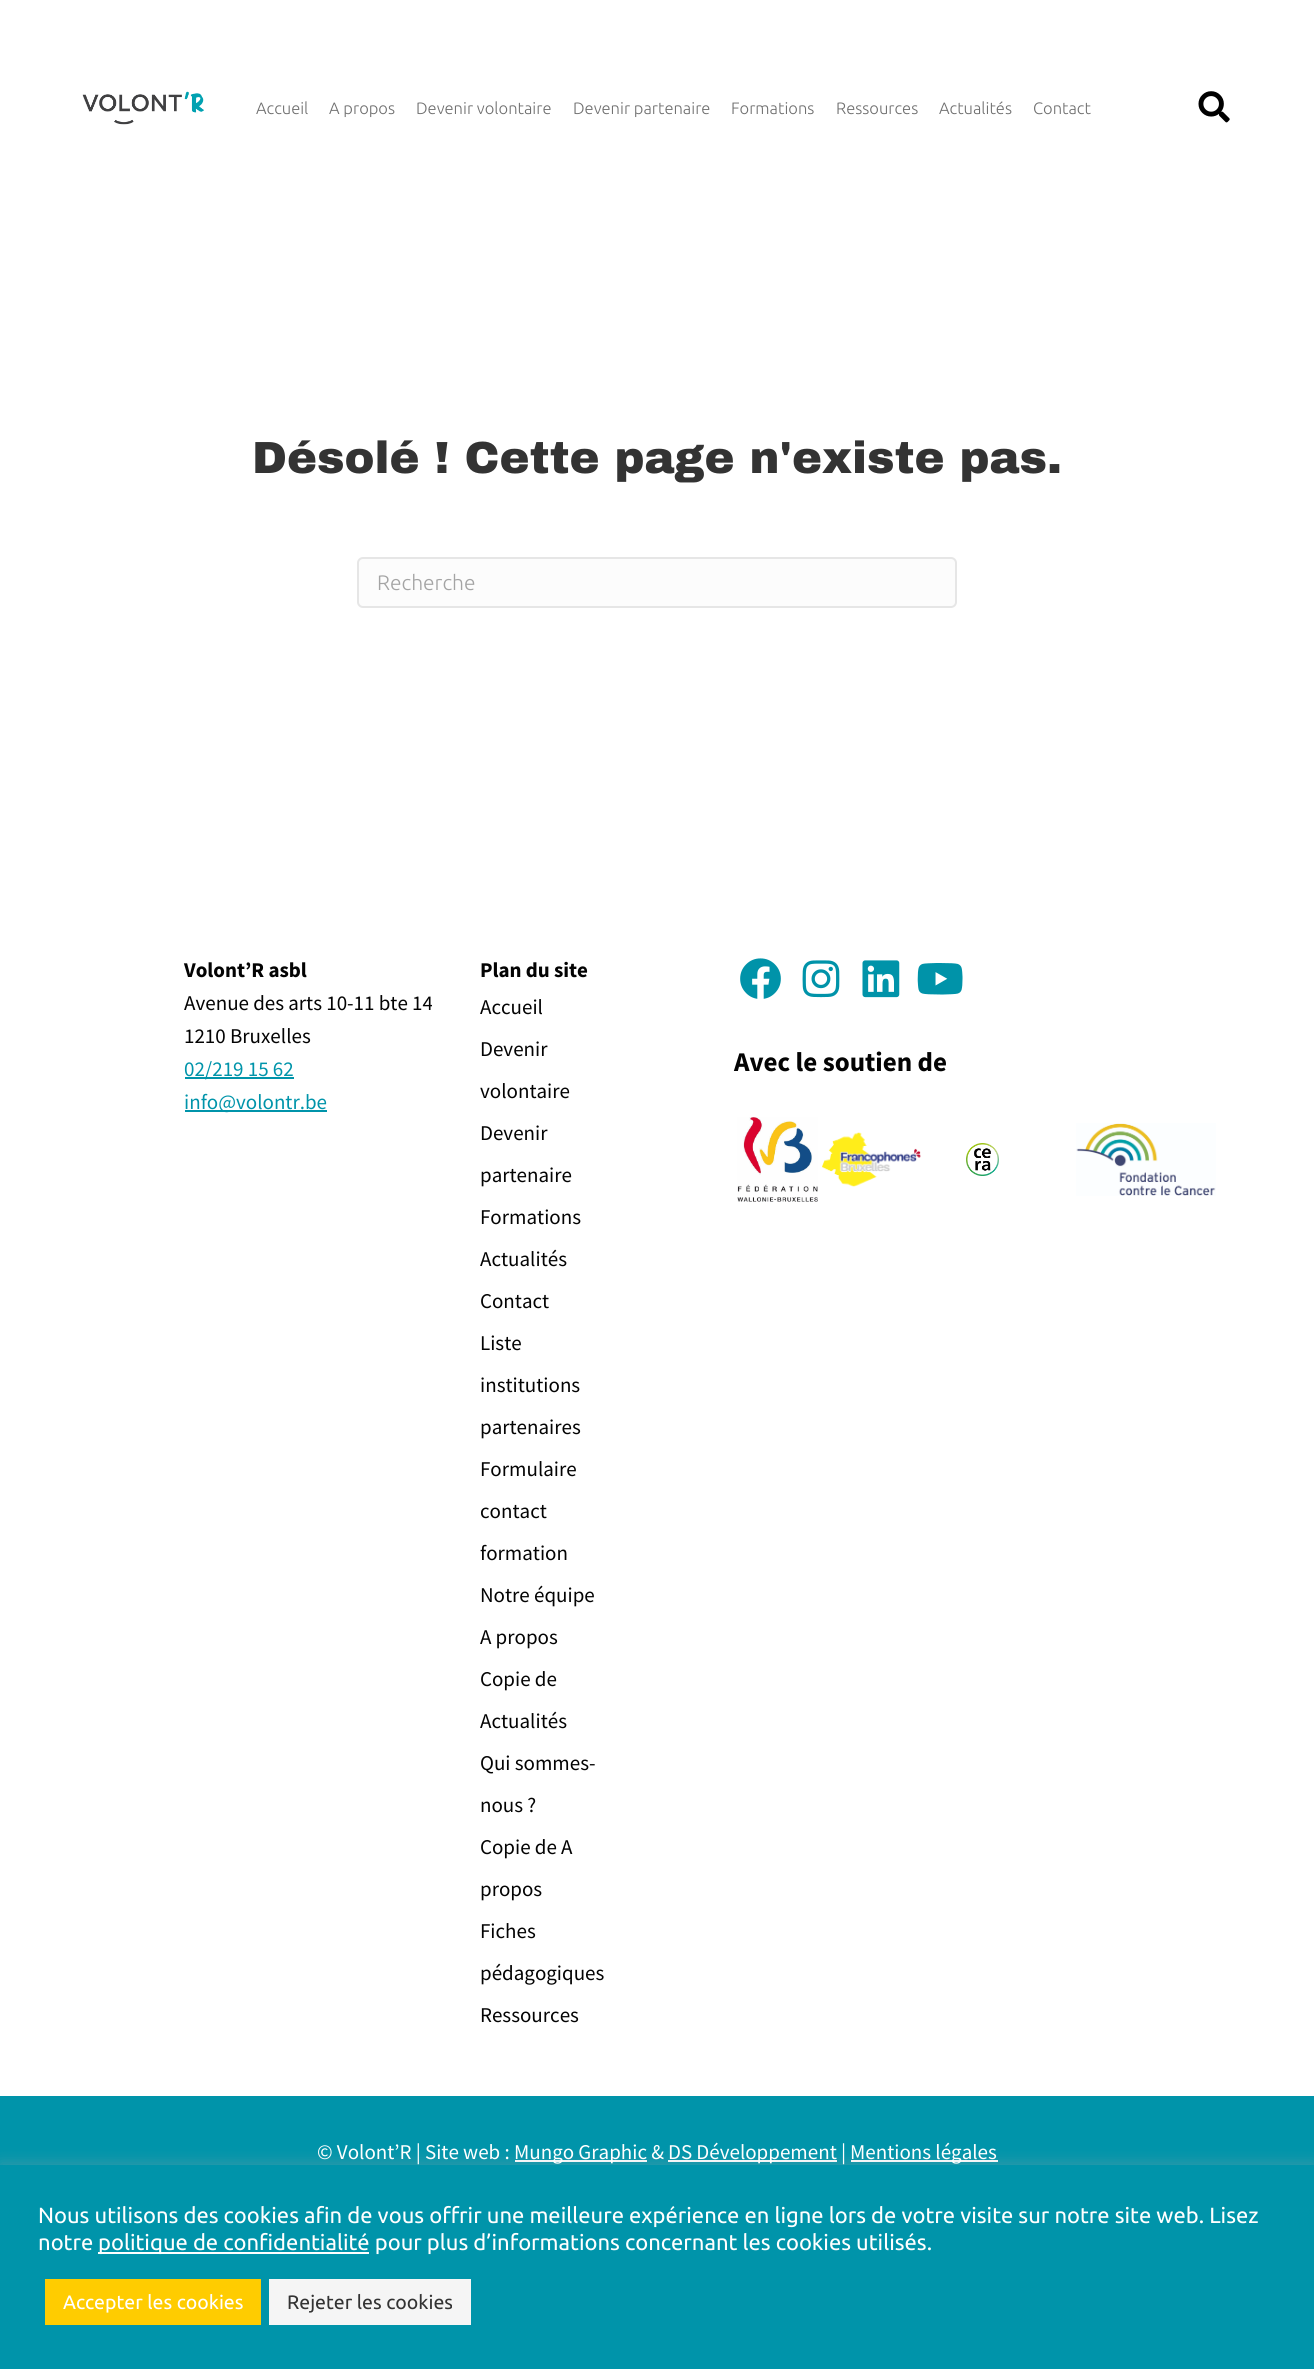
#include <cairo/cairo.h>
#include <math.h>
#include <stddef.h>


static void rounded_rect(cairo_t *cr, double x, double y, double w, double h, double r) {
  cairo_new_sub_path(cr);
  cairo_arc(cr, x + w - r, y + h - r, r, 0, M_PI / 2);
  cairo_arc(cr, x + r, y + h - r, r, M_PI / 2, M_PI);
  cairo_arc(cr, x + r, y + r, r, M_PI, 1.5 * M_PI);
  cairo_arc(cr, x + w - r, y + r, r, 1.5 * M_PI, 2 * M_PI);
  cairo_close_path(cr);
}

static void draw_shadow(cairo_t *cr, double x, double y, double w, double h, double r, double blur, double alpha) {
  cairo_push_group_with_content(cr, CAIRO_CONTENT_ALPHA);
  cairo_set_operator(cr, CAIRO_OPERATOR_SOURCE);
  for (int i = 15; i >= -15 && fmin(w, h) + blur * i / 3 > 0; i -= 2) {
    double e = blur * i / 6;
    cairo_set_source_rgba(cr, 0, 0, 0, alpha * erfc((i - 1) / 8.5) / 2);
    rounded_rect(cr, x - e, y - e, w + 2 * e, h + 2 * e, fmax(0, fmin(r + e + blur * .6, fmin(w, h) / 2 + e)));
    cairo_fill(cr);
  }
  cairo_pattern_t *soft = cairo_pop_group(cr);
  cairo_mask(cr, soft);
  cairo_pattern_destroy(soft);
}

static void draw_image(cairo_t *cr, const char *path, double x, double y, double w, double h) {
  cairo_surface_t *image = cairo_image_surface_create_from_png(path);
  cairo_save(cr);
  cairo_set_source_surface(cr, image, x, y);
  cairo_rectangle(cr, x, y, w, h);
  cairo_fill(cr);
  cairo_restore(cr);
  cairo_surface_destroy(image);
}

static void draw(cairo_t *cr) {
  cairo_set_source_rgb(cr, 1, 1, 1);
  cairo_paint(cr);
  draw_image(cr, "images/1.png", 82, 91, 122, 34);
  draw_image(cr, "images/2.png", 1198, 91, 32, 32);
  cairo_set_source_rgb(cr, 252 / 255.0, 252 / 255.0, 252 / 255.0);
  rounded_rect(cr, 358, 558, 598, 49, 5);
  cairo_fill_preserve(cr);
  cairo_set_source_rgb(cr, 230 / 255.0, 230 / 255.0, 230 / 255.0);
  cairo_stroke(cr);
  cairo_set_source_rgb(cr, 0, 148 / 255.0, 170 / 255.0);
  cairo_rectangle(cr, 185, 1077, 109, 2);
  cairo_fill(cr);
  cairo_rectangle(cr, 185, 1110, 142, 2);
  cairo_fill(cr);
  draw_image(cr, "images/3.png", 740, 958, 41, 41);
  draw_image(cr, "images/4.png", 802, 960, 38, 38);
  draw_image(cr, "images/5.png", 862, 960, 38, 38);
  draw_image(cr, "images/6.png", 917, 963, 46, 32);
  draw_image(cr, "images/7.png", 737, 1117, 81, 85);
  draw_image(cr, "images/8.png", 822, 1132, 99, 55);
  draw_image(cr, "images/9.png", 966, 1143, 33, 33);
  draw_image(cr, "images/10.png", 1076, 1123, 140, 73);
  cairo_rectangle(cr, 0, 2096, 1314, 69);
  cairo_fill(cr);
  cairo_set_source_rgb(cr, 1, 1, 1);
  cairo_rectangle(cr, 515, 2160, 132, 2);
  cairo_fill(cr);
  cairo_rectangle(cr, 668, 2160, 169, 2);
  cairo_fill(cr);
  cairo_rectangle(cr, 851, 2160, 147, 2);
  cairo_fill(cr);
  cairo_set_source_rgb(cr, 172 / 255.0, 171 / 255.0, 171 / 255.0);
  draw_shadow(cr, 0, 2163, 1314, 206, 0, 7.5, 0.3);
  cairo_set_source_rgb(cr, 0, 148 / 255.0, 170 / 255.0);
  cairo_rectangle(cr, 0, 2165, 1314, 204);
  cairo_fill(cr);
  cairo_set_source_rgb(cr, 1, 1, 1);
  cairo_rectangle(cr, 98, 2252, 271, 2);
  cairo_fill(cr);
  cairo_set_source_rgb(cr, 1, 204 / 255.0, 0);
  cairo_rectangle(cr, 45, 2279, 216, 46);
  cairo_fill(cr);
  cairo_set_source_rgb(cr, 245 / 255.0, 245 / 255.0, 245 / 255.0);
  cairo_rectangle(cr, 269, 2279, 202, 46);
  cairo_fill(cr);
  cairo_select_font_face(cr, "Ubuntu Light", CAIRO_FONT_SLANT_NORMAL, CAIRO_FONT_WEIGHT_NORMAL);
  cairo_set_font_size(cr, 16.5);
  cairo_set_source_rgb(cr, 112 / 255.0, 112 / 255.0, 112 / 255.0);
  cairo_move_to(cr, 256, 114);
  cairo_show_text(cr, "Accueil");
  cairo_move_to(cr, 329, 114);
  cairo_show_text(cr, "A propos");
  cairo_move_to(cr, 416, 114);
  cairo_show_text(cr, "Devenir volontaire");
  cairo_move_to(cr, 573, 114);
  cairo_show_text(cr, "Devenir partenaire");
  cairo_move_to(cr, 731, 114);
  cairo_show_text(cr, "Formations");
  cairo_move_to(cr, 836, 114);
  cairo_show_text(cr, "Ressources");
  cairo_move_to(cr, 939, 114);
  cairo_show_text(cr, "Actualités");
  cairo_move_to(cr, 1033, 114);
  cairo_show_text(cr, "Contact");
  cairo_select_font_face(cr, "Archivo Black Black", CAIRO_FONT_SLANT_NORMAL, CAIRO_FONT_WEIGHT_NORMAL);
  cairo_set_font_size(cr, 45);
  cairo_set_source_rgb(cr, 51 / 255.0, 51 / 255.0, 51 / 255.0);
  cairo_move_to(cr, 252, 473);
  cairo_show_text(cr, "Désolé ! Cette page n'existe pas.");
  cairo_select_font_face(cr, "Ubuntu Light", CAIRO_FONT_SLANT_NORMAL, CAIRO_FONT_WEIGHT_NORMAL);
  cairo_set_font_size(cr, 21);
  cairo_set_source_rgb(cr, 164 / 255.0, 164 / 255.0, 164 / 255.0);
  cairo_move_to(cr, 377, 590);
  cairo_show_text(cr, "Recherche");
  cairo_select_font_face(cr, "Source Sans Pro", CAIRO_FONT_SLANT_NORMAL, CAIRO_FONT_WEIGHT_BOLD);
  cairo_set_source_rgb(cr, 3 / 255.0, 3 / 255.0, 3 / 255.0);
  cairo_move_to(cr, 184, 977);
  cairo_show_text(cr, "Volont’R asbl");
  cairo_select_font_face(cr, "Source Sans Pro", CAIRO_FONT_SLANT_NORMAL, CAIRO_FONT_WEIGHT_NORMAL);
  cairo_move_to(cr, 184, 1010);
  cairo_show_text(cr, "Avenue des arts 10-11 bte 14");
  cairo_move_to(cr, 184, 1043);
  cairo_show_text(cr, "1210 Bruxelles");
  cairo_set_source_rgb(cr, 0, 148 / 255.0, 170 / 255.0);
  cairo_move_to(cr, 184, 1076);
  cairo_show_text(cr, "02/219 15 62");
  cairo_move_to(cr, 184, 1109);
  cairo_show_text(cr, "info@volontr.be");
  cairo_select_font_face(cr, "Source Sans Pro", CAIRO_FONT_SLANT_NORMAL, CAIRO_FONT_WEIGHT_BOLD);
  cairo_set_source_rgb(cr, 3 / 255.0, 3 / 255.0, 3 / 255.0);
  cairo_move_to(cr, 480, 977);
  cairo_show_text(cr, "Plan du site");
  cairo_select_font_face(cr, "Source Sans Pro", CAIRO_FONT_SLANT_NORMAL, CAIRO_FONT_WEIGHT_NORMAL);
  cairo_move_to(cr, 480, 1014);
  cairo_show_text(cr, "Accueil");
  cairo_move_to(cr, 480, 1056);
  cairo_show_text(cr, "Devenir");
  cairo_move_to(cr, 480, 1098);
  cairo_show_text(cr, "volontaire");
  cairo_move_to(cr, 480, 1140);
  cairo_show_text(cr, "Devenir");
  cairo_move_to(cr, 480, 1182);
  cairo_show_text(cr, "partenaire");
  cairo_move_to(cr, 480, 1224);
  cairo_show_text(cr, "Formations");
  cairo_move_to(cr, 480, 1266);
  cairo_show_text(cr, "Actualités");
  cairo_move_to(cr, 480, 1308);
  cairo_show_text(cr, "Contact");
  cairo_move_to(cr, 480, 1350);
  cairo_show_text(cr, "Liste");
  cairo_move_to(cr, 480, 1392);
  cairo_show_text(cr, "institutions");
  cairo_move_to(cr, 480, 1434);
  cairo_show_text(cr, "partenaires");
  cairo_move_to(cr, 480, 1476);
  cairo_show_text(cr, "Formulaire");
  cairo_move_to(cr, 480, 1518);
  cairo_show_text(cr, "contact");
  cairo_move_to(cr, 480, 1560);
  cairo_show_text(cr, "formation");
  cairo_move_to(cr, 480, 1602);
  cairo_show_text(cr, "Notre équipe");
  cairo_move_to(cr, 480, 1644);
  cairo_show_text(cr, "A propos");
  cairo_move_to(cr, 480, 1686);
  cairo_show_text(cr, "Copie de");
  cairo_move_to(cr, 480, 1728);
  cairo_show_text(cr, "Actualités");
  cairo_move_to(cr, 480, 1770);
  cairo_show_text(cr, "Qui sommes-");
  cairo_move_to(cr, 480, 1812);
  cairo_show_text(cr, "nous ?");
  cairo_move_to(cr, 480, 1854);
  cairo_show_text(cr, "Copie de A");
  cairo_move_to(cr, 480, 1896);
  cairo_show_text(cr, "propos");
  cairo_move_to(cr, 480, 1938);
  cairo_show_text(cr, "Fiches");
  cairo_move_to(cr, 480, 1980);
  cairo_show_text(cr, "pédagogiques");
  cairo_move_to(cr, 480, 2022);
  cairo_show_text(cr, "Ressources");
  cairo_select_font_face(cr, "Source Sans Pro", CAIRO_FONT_SLANT_NORMAL, CAIRO_FONT_WEIGHT_BOLD);
  cairo_set_font_size(cr, 27);
  cairo_move_to(cr, 734, 1071);
  cairo_show_text(cr, "Avec le soutien de");
  cairo_select_font_face(cr, "Source Sans Pro", CAIRO_FONT_SLANT_NORMAL, CAIRO_FONT_WEIGHT_NORMAL);
  cairo_set_font_size(cr, 21);
  cairo_set_source_rgb(cr, 1, 1, 1);
  cairo_move_to(cr, 317, 2159);
  cairo_show_text(cr, "© Volont’R | Site web :");
  cairo_move_to(cr, 514, 2159);
  cairo_show_text(cr, "Mungo Graphic &");
  cairo_move_to(cr, 668, 2159);
  cairo_show_text(cr, "DS Développement |");
  cairo_move_to(cr, 850, 2159);
  cairo_show_text(cr, "Mentions légales");
  cairo_select_font_face(cr, "Ubuntu", CAIRO_FONT_SLANT_NORMAL, CAIRO_FONT_WEIGHT_NORMAL);
  cairo_set_font_size(cr, 22);
  cairo_move_to(cr, 38, 2223);
  cairo_show_text(cr, "Nous utilisons des cookies afin de vous offrir une meilleure expérience en ligne lors de votre visite sur notre site web. Lisez");
  cairo_move_to(cr, 38, 2250);
  cairo_show_text(cr, "notre");
  cairo_move_to(cr, 98, 2250);
  cairo_show_text(cr, "politique de confidentialité pour plus d’informations concernant les cookies utilisés.");
  cairo_set_font_size(cr, 19.5);
  cairo_move_to(cr, 63, 2309);
  cairo_show_text(cr, "Accepter les cookies");
  cairo_set_source_rgb(cr, 51 / 255.0, 51 / 255.0, 51 / 255.0);
  cairo_move_to(cr, 287, 2309);
  cairo_show_text(cr, "Rejeter les cookies");
}

int main(void) {
  cairo_surface_t *surface = cairo_image_surface_create(CAIRO_FORMAT_RGB24, 1314, 2369);
  cairo_t *cr = cairo_create(surface);
  cairo_font_options_t *options = cairo_font_options_create();
  cairo_font_options_set_hint_metrics(options, CAIRO_HINT_METRICS_OFF);
  cairo_font_options_set_hint_style(options, CAIRO_HINT_STYLE_NONE);
  cairo_set_font_options(cr, options);
  cairo_set_miter_limit(cr, 4);
  draw(cr);
  cairo_surface_write_to_png(surface, "out.png");
  cairo_font_options_destroy(options);
  cairo_destroy(cr);
  cairo_surface_destroy(surface);
  return 0;
}
